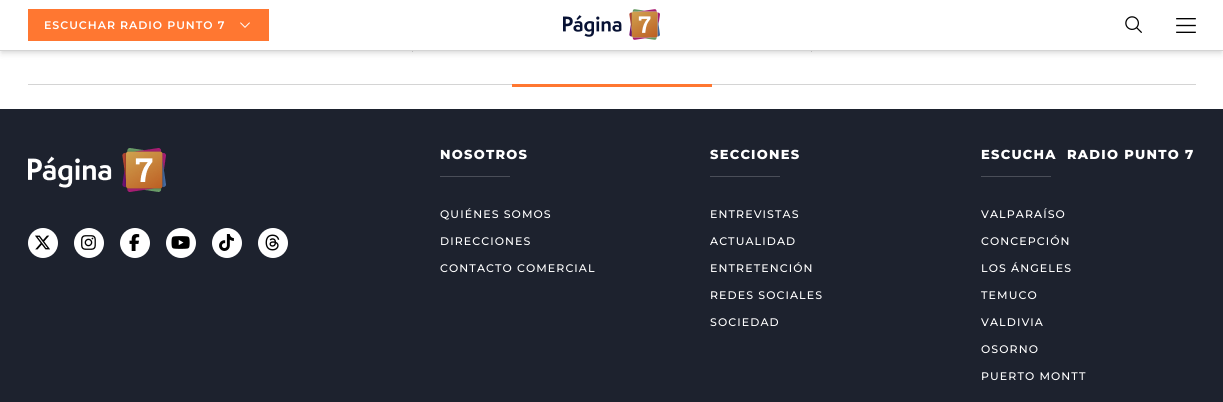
#include <cairo/cairo.h>
#include <math.h>
#include <stddef.h>


static void draw_spaced(cairo_t *cr, double x, double y, const char *s, double letter, double word) {
  cairo_move_to(cr, x, y);
  while (*s) {
    char ch[5] = {0};
    int n = 0;
    do ch[n++] = *s++; while ((*s & 0xC0) == 0x80);
    cairo_show_text(cr, ch);
    cairo_rel_move_to(cr, letter + word * (*ch == ' '), 0);
  }
}

static void rounded_rect(cairo_t *cr, double x, double y, double w, double h, double r) {
  cairo_new_sub_path(cr);
  cairo_arc(cr, x + w - r, y + h - r, r, 0, M_PI / 2);
  cairo_arc(cr, x + r, y + h - r, r, M_PI / 2, M_PI);
  cairo_arc(cr, x + r, y + r, r, M_PI, 1.5 * M_PI);
  cairo_arc(cr, x + w - r, y + r, r, 1.5 * M_PI, 2 * M_PI);
  cairo_close_path(cr);
}

static void draw_shadow(cairo_t *cr, double x, double y, double w, double h, double r, double blur, double alpha) {
  cairo_push_group_with_content(cr, CAIRO_CONTENT_ALPHA);
  cairo_set_operator(cr, CAIRO_OPERATOR_SOURCE);
  for (int i = 15; i >= -15 && fmin(w, h) + blur * i / 3 > 0; i -= 2) {
    double e = blur * i / 6;
    cairo_set_source_rgba(cr, 0, 0, 0, alpha * erfc((i - 1) / 8.5) / 2);
    rounded_rect(cr, x - e, y - e, w + 2 * e, h + 2 * e, fmax(0, fmin(r + e + blur * .6, fmin(w, h) / 2 + e)));
    cairo_fill(cr);
  }
  cairo_pattern_t *soft = cairo_pop_group(cr);
  cairo_mask(cr, soft);
  cairo_pattern_destroy(soft);
}

static void draw_image(cairo_t *cr, const char *path, double x, double y, double w, double h) {
  cairo_surface_t *image = cairo_image_surface_create_from_png(path);
  cairo_save(cr);
  cairo_set_source_surface(cr, image, x, y);
  cairo_rectangle(cr, x, y, w, h);
  cairo_fill(cr);
  cairo_restore(cr);
  cairo_surface_destroy(image);
}

static void draw(cairo_t *cr) {
  cairo_set_source_rgb(cr, 1, 1, 1);
  cairo_paint(cr);
  cairo_set_source_rgb(cr, 212 / 255.0, 212 / 255.0, 212 / 255.0);
  cairo_rectangle(cr, 811, 51, 1, 1);
  cairo_fill(cr);
  cairo_rectangle(cr, 412, 51, 1, 1);
  cairo_fill(cr);
  cairo_set_source_rgb(cr, 0, 0, 0);
  draw_shadow(cr, 2, 4, 1219, 47, 0, 2, 0.1);
  draw_shadow(cr, 1, 5, 1221, 49, 0, 3, 0.1);
  cairo_set_source_rgb(cr, 1, 1, 1);
  cairo_rectangle(cr, 0, 0, 1223, 50);
  cairo_fill(cr);
  cairo_set_source_rgb(cr, 1, 119 / 255.0, 49 / 255.0);
  cairo_rectangle(cr, 28, 9, 241, 32);
  cairo_fill(cr);
  draw_image(cr, "images/1.png", 240, 22, 10, 6);
  draw_image(cr, "images/2.png", 563, 9, 97, 31);
  draw_image(cr, "images/3.png", 1125, 16, 17, 17);
  draw_image(cr, "images/4.png", 1176, 18, 20, 15);
  cairo_set_source_rgb(cr, 212 / 255.0, 212 / 255.0, 212 / 255.0);
  cairo_rectangle(cr, 0, 50, 1223, 1);
  cairo_fill(cr);
  cairo_rectangle(cr, 28, 84, 1168, 1);
  cairo_fill(cr);
  cairo_set_source_rgb(cr, 1, 119 / 255.0, 49 / 255.0);
  cairo_rectangle(cr, 512, 84, 200, 3);
  cairo_fill(cr);
  cairo_set_source_rgb(cr, 29 / 255.0, 34 / 255.0, 46 / 255.0);
  cairo_rectangle(cr, 0, 109, 1223, 293);
  cairo_fill(cr);
  draw_image(cr, "images/5.png", 28, 148, 138, 44);
  cairo_set_source_rgb(cr, 1, 1, 1);
  cairo_arc(cr, 43, 243, 15, 0, 2 * M_PI);
  cairo_fill(cr);
  draw_image(cr, "images/6.png", 35, 235, 15, 15);
  cairo_arc(cr, 89, 243, 15, 0, 2 * M_PI);
  cairo_fill(cr);
  draw_image(cr, "images/7.png", 81, 235, 15, 15);
  cairo_arc(cr, 135, 243, 15, 0, 2 * M_PI);
  cairo_fill(cr);
  draw_image(cr, "images/8.png", 129, 234, 11, 17);
  cairo_arc(cr, 181, 243, 15, 0, 2 * M_PI);
  cairo_fill(cr);
  draw_image(cr, "images/9.png", 171, 236, 19, 13);
  cairo_arc(cr, 227, 243, 15, 0, 2 * M_PI);
  cairo_fill(cr);
  draw_image(cr, "images/10.png", 219, 234, 15, 17);
  cairo_arc(cr, 273, 243, 15, 0, 2 * M_PI);
  cairo_fill(cr);
  draw_image(cr, "images/11.png", 265, 234, 15, 17);
  cairo_set_source_rgb(cr, 74 / 255.0, 78 / 255.0, 88 / 255.0);
  cairo_rectangle(cr, 440, 176, 70, 1);
  cairo_fill(cr);
  cairo_rectangle(cr, 710, 176, 70, 1);
  cairo_fill(cr);
  cairo_rectangle(cr, 981, 176, 70, 1);
  cairo_fill(cr);
  cairo_select_font_face(cr, "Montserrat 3 Thin", CAIRO_FONT_SLANT_NORMAL, CAIRO_FONT_WEIGHT_NORMAL);
  cairo_set_font_size(cr, 11);
  cairo_set_source_rgb(cr, 1, 1, 1);
  draw_spaced(cr, 44, 29, "ESCUCHAR RADIO PUNTO 7", 1, 0);
  cairo_select_font_face(cr, "Montserrat Thin", CAIRO_FONT_SLANT_NORMAL, CAIRO_FONT_WEIGHT_NORMAL);
  cairo_set_font_size(cr, 13);
  draw_spaced(cr, 440, 159, "NOSOTROS", 1.25, 0);
  draw_spaced(cr, 710, 159, "SECCIONES", 1.25, 0);
  draw_spaced(cr, 981, 159, "ESCUCHA", 1.25, 0);
  draw_spaced(cr, 1067, 159, "RADIO PUNTO 7", 1.25, 0);
  cairo_select_font_face(cr, "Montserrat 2 Thin", CAIRO_FONT_SLANT_NORMAL, CAIRO_FONT_WEIGHT_NORMAL);
  cairo_set_font_size(cr, 11);
  draw_spaced(cr, 440, 218, "QUIÉNES SOMOS", 1.1, 0);
  draw_spaced(cr, 440, 245, "DIRECCIONES", 1.1, 0);
  draw_spaced(cr, 440, 272, "CONTACTO COMERCIAL", 1.1, 0);
  draw_spaced(cr, 710, 218, "ENTREVISTAS", 1.1, 0);
  draw_spaced(cr, 710, 245, "ACTUALIDAD", 1.1, 0);
  draw_spaced(cr, 710, 272, "ENTRETENCIÓN", 1.1, 0);
  draw_spaced(cr, 710, 299, "REDES SOCIALES", 1.1, 0);
  draw_spaced(cr, 710, 326, "SOCIEDAD", 1.1, 0);
  draw_spaced(cr, 981, 218, "VALPARAÍSO", 1.1, 0);
  draw_spaced(cr, 981, 245, "CONCEPCIÓN", 1.1, 0);
  draw_spaced(cr, 981, 272, "LOS ÁNGELES", 1.1, 0);
  draw_spaced(cr, 981, 299, "TEMUCO", 1.1, 0);
  draw_spaced(cr, 981, 326, "VALDIVIA", 1.1, 0);
  draw_spaced(cr, 981, 353, "OSORNO", 1.1, 0);
  draw_spaced(cr, 981, 380, "PUERTO MONTT", 1.1, 0);
}

int main(void) {
  cairo_surface_t *surface = cairo_image_surface_create(CAIRO_FORMAT_RGB24, 1223, 402);
  cairo_t *cr = cairo_create(surface);
  cairo_font_options_t *options = cairo_font_options_create();
  cairo_font_options_set_hint_metrics(options, CAIRO_HINT_METRICS_OFF);
  cairo_font_options_set_hint_style(options, CAIRO_HINT_STYLE_NONE);
  cairo_set_font_options(cr, options);
  cairo_set_miter_limit(cr, 4);
  draw(cr);
  cairo_surface_write_to_png(surface, "out.png");
  cairo_font_options_destroy(options);
  cairo_destroy(cr);
  cairo_surface_destroy(surface);
  return 0;
}
